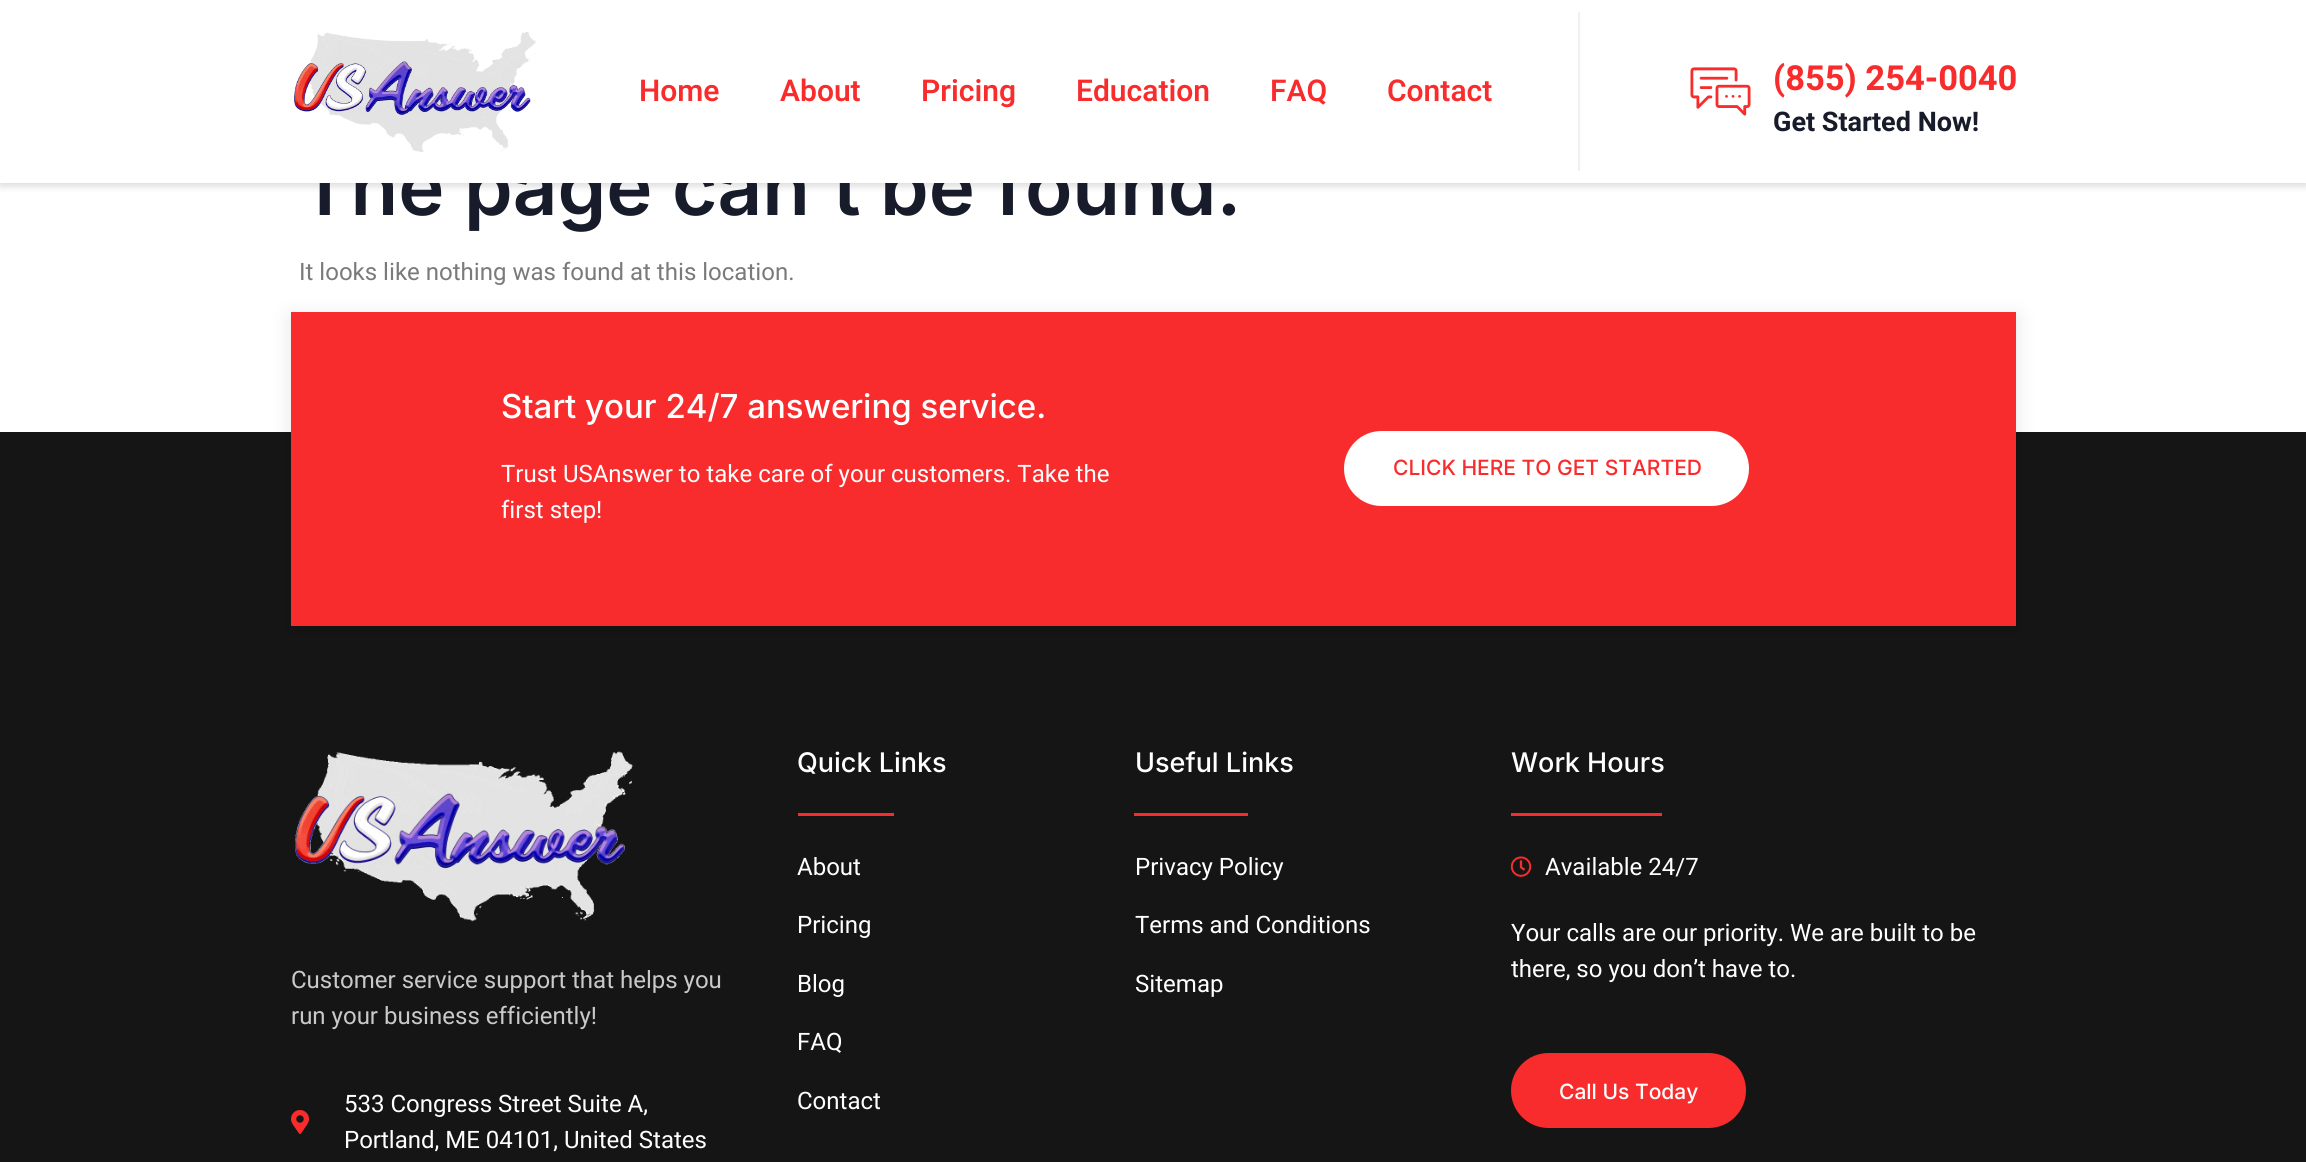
#include <cairo/cairo.h>
#include <math.h>
#include <stddef.h>


static void rounded_rect(cairo_t *cr, double x, double y, double w, double h, double r) {
  cairo_new_sub_path(cr);
  cairo_arc(cr, x + w - r, y + h - r, r, 0, M_PI / 2);
  cairo_arc(cr, x + r, y + h - r, r, M_PI / 2, M_PI);
  cairo_arc(cr, x + r, y + r, r, M_PI, 1.5 * M_PI);
  cairo_arc(cr, x + w - r, y + r, r, 1.5 * M_PI, 2 * M_PI);
  cairo_close_path(cr);
}

static void draw_shadow(cairo_t *cr, double x, double y, double w, double h, double r, double blur, double alpha) {
  cairo_push_group_with_content(cr, CAIRO_CONTENT_ALPHA);
  cairo_set_operator(cr, CAIRO_OPERATOR_SOURCE);
  for (int i = 15; i >= -15 && fmin(w, h) + blur * i / 3 > 0; i -= 2) {
    double e = blur * i / 6;
    cairo_set_source_rgba(cr, 0, 0, 0, alpha * erfc((i - 1) / 8.5) / 2);
    rounded_rect(cr, x - e, y - e, w + 2 * e, h + 2 * e, fmax(0, fmin(r + e + blur * .6, fmin(w, h) / 2 + e)));
    cairo_fill(cr);
  }
  cairo_pattern_t *soft = cairo_pop_group(cr);
  cairo_mask(cr, soft);
  cairo_pattern_destroy(soft);
}

static void draw_image(cairo_t *cr, const char *path, double x, double y, double w, double h) {
  cairo_surface_t *image = cairo_image_surface_create_from_png(path);
  cairo_save(cr);
  cairo_set_source_surface(cr, image, x, y);
  cairo_rectangle(cr, x, y, w, h);
  cairo_fill(cr);
  cairo_restore(cr);
  cairo_surface_destroy(image);
}

static void draw(cairo_t *cr) {
  cairo_set_source_rgb(cr, 1, 1, 1);
  cairo_paint(cr);
  cairo_set_source_rgb(cr, 0, 0, 0);
  draw_shadow(cr, 0, 3, 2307, 183, 0, 4, 0.15);
  cairo_set_source_rgb(cr, 21 / 255.0, 21 / 255.0, 21 / 255.0);
  cairo_rectangle(cr, 0, 432, 2306, 730);
  cairo_fill(cr);
  cairo_set_source_rgb(cr, 0, 0, 0);
  draw_shadow(cr, 291, 317, 1725, 313, 0, 11, 0.1);
  cairo_set_source_rgb(cr, 248 / 255.0, 44 / 255.0, 44 / 255.0);
  cairo_rectangle(cr, 291, 312, 1725, 314);
  cairo_fill(cr);
  cairo_set_source_rgb(cr, 1, 1, 1);
  rounded_rect(cr, 1344, 431, 405, 75, 37.5);
  cairo_fill(cr);
  draw_image(cr, "images/3.png", 295, 751, 338, 171);
  draw_image(cr, "images/4.png", 291, 1110, 18, 24);
  cairo_set_source_rgb(cr, 248 / 255.0, 44 / 255.0, 44 / 255.0);
  cairo_rectangle(cr, 798, 813, 96, 3);
  cairo_fill(cr);
  cairo_rectangle(cr, 1134, 813, 114, 3);
  cairo_fill(cr);
  cairo_rectangle(cr, 1511, 813, 151, 3);
  cairo_fill(cr);
  draw_image(cr, "images/5.png", 1510, 856, 22, 21);
  rounded_rect(cr, 1511, 1053, 235, 75, 37.5);
  cairo_fill(cr);
  cairo_select_font_face(cr, "Inter SemiBold", CAIRO_FONT_SLANT_NORMAL, CAIRO_FONT_WEIGHT_NORMAL);
  cairo_set_font_size(cr, 78);
  cairo_set_source_rgb(cr, 24 / 255.0, 27 / 255.0, 42 / 255.0);
  cairo_move_to(cr, 299, 215);
  cairo_show_text(cr, "The page can’t be found.");
  cairo_set_source_rgb(cr, 1, 1, 1);
  cairo_rectangle(cr, 0, 0, 2306, 183);
  cairo_fill(cr);
  cairo_select_font_face(cr, "Heebo SemiBold", CAIRO_FONT_SLANT_NORMAL, CAIRO_FONT_WEIGHT_NORMAL);
  cairo_set_font_size(cr, 30);
  cairo_set_source_rgb(cr, 248 / 255.0, 44 / 255.0, 44 / 255.0);
  cairo_move_to(cr, 1387, 101);
  cairo_show_text(cr, "Contact");
  cairo_move_to(cr, 1270, 101);
  cairo_show_text(cr, "FAQ");
  cairo_move_to(cr, 1076, 101);
  cairo_show_text(cr, "Education");
  cairo_move_to(cr, 921, 101);
  cairo_show_text(cr, "Pricing");
  cairo_move_to(cr, 780, 101);
  cairo_show_text(cr, "About");
  cairo_move_to(cr, 639, 101);
  cairo_show_text(cr, "Home");
  draw_image(cr, "images/2.png", 1690, 67, 61, 49);
  cairo_select_font_face(cr, "Heebo", CAIRO_FONT_SLANT_NORMAL, CAIRO_FONT_WEIGHT_BOLD);
  cairo_set_font_size(cr, 27);
  cairo_set_source_rgb(cr, 24 / 255.0, 27 / 255.0, 42 / 255.0);
  cairo_move_to(cr, 1773, 131);
  cairo_show_text(cr, "Get Started Now!");
  cairo_set_font_size(cr, 34.5);
  cairo_set_source_rgb(cr, 248 / 255.0, 44 / 255.0, 44 / 255.0);
  cairo_move_to(cr, 1773, 90);
  cairo_show_text(cr, "(855) 254-0040");
  cairo_set_source_rgb(cr, 240 / 255.0, 240 / 255.0, 240 / 255.0);
  cairo_rectangle(cr, 1578, 12, 2, 159);
  cairo_fill(cr);
  draw_image(cr, "images/1.png", 294, 32, 242, 121);
  cairo_select_font_face(cr, "Heebo", CAIRO_FONT_SLANT_NORMAL, CAIRO_FONT_WEIGHT_NORMAL);
  cairo_set_font_size(cr, 24);
  cairo_set_source_rgb(cr, 122 / 255.0, 122 / 255.0, 122 / 255.0);
  cairo_move_to(cr, 299, 280);
  cairo_show_text(cr, "It looks like nothing was found at this location.");
  cairo_select_font_face(cr, "Inter Medium", CAIRO_FONT_SLANT_NORMAL, CAIRO_FONT_WEIGHT_NORMAL);
  cairo_set_font_size(cr, 33);
  cairo_set_source_rgb(cr, 1, 1, 1);
  cairo_move_to(cr, 501, 418);
  cairo_show_text(cr, "Start your 24/7 answering service.");
  cairo_select_font_face(cr, "Heebo", CAIRO_FONT_SLANT_NORMAL, CAIRO_FONT_WEIGHT_NORMAL);
  cairo_set_font_size(cr, 24);
  cairo_move_to(cr, 501, 482);
  cairo_show_text(cr, "Trust USAnswer to take care of your customers. Take the");
  cairo_move_to(cr, 501, 518);
  cairo_show_text(cr, "first step!");
  cairo_select_font_face(cr, "Inter Medium", CAIRO_FONT_SLANT_NORMAL, CAIRO_FONT_WEIGHT_NORMAL);
  cairo_set_font_size(cr, 21);
  cairo_set_source_rgb(cr, 248 / 255.0, 44 / 255.0, 44 / 255.0);
  cairo_move_to(cr, 1393, 475);
  cairo_show_text(cr, "CLICK HERE TO GET STARTED");
  cairo_select_font_face(cr, "Heebo", CAIRO_FONT_SLANT_NORMAL, CAIRO_FONT_WEIGHT_NORMAL);
  cairo_set_font_size(cr, 24);
  cairo_set_source_rgb(cr, 201 / 255.0, 201 / 255.0, 201 / 255.0);
  cairo_move_to(cr, 291, 988);
  cairo_show_text(cr, "Customer service support that helps you");
  cairo_move_to(cr, 291, 1024);
  cairo_show_text(cr, "run your business efficiently!");
  cairo_set_source_rgb(cr, 1, 1, 1);
  cairo_move_to(cr, 344, 1112);
  cairo_show_text(cr, "533 Congress Street Suite A,");
  cairo_move_to(cr, 344, 1148);
  cairo_show_text(cr, "Portland, ME 04101, United States");
  cairo_select_font_face(cr, "Inter Medium", CAIRO_FONT_SLANT_NORMAL, CAIRO_FONT_WEIGHT_NORMAL);
  cairo_set_font_size(cr, 27);
  cairo_move_to(cr, 797, 772);
  cairo_show_text(cr, "Quick Links");
  cairo_select_font_face(cr, "Heebo", CAIRO_FONT_SLANT_NORMAL, CAIRO_FONT_WEIGHT_NORMAL);
  cairo_set_font_size(cr, 24);
  cairo_move_to(cr, 797, 875);
  cairo_show_text(cr, "About");
  cairo_move_to(cr, 797, 933);
  cairo_show_text(cr, "Pricing");
  cairo_move_to(cr, 797, 992);
  cairo_show_text(cr, "Blog");
  cairo_move_to(cr, 797, 1050);
  cairo_show_text(cr, "FAQ");
  cairo_move_to(cr, 797, 1109);
  cairo_show_text(cr, "Contact");
  cairo_select_font_face(cr, "Inter Medium", CAIRO_FONT_SLANT_NORMAL, CAIRO_FONT_WEIGHT_NORMAL);
  cairo_set_font_size(cr, 27);
  cairo_move_to(cr, 1135, 772);
  cairo_show_text(cr, "Useful Links");
  cairo_select_font_face(cr, "Heebo", CAIRO_FONT_SLANT_NORMAL, CAIRO_FONT_WEIGHT_NORMAL);
  cairo_set_font_size(cr, 24);
  cairo_move_to(cr, 1135, 875);
  cairo_show_text(cr, "Privacy Policy");
  cairo_move_to(cr, 1135, 933);
  cairo_show_text(cr, "Terms and Conditions");
  cairo_move_to(cr, 1135, 992);
  cairo_show_text(cr, "Sitemap");
  cairo_select_font_face(cr, "Inter Medium", CAIRO_FONT_SLANT_NORMAL, CAIRO_FONT_WEIGHT_NORMAL);
  cairo_set_font_size(cr, 27);
  cairo_move_to(cr, 1511, 772);
  cairo_show_text(cr, "Work Hours");
  cairo_select_font_face(cr, "Heebo", CAIRO_FONT_SLANT_NORMAL, CAIRO_FONT_WEIGHT_NORMAL);
  cairo_set_font_size(cr, 24);
  cairo_move_to(cr, 1545, 875);
  cairo_show_text(cr, "Available 24/7");
  cairo_move_to(cr, 1511, 941);
  cairo_show_text(cr, "Your calls are our priority. We are built to be");
  cairo_move_to(cr, 1511, 977);
  cairo_show_text(cr, "there, so you don’t have to.");
  cairo_select_font_face(cr, "Inter Medium", CAIRO_FONT_SLANT_NORMAL, CAIRO_FONT_WEIGHT_NORMAL);
  cairo_set_font_size(cr, 21);
  cairo_move_to(cr, 1559, 1099);
  cairo_show_text(cr, "Call Us Today");
}

int main(void) {
  cairo_surface_t *surface = cairo_image_surface_create(CAIRO_FORMAT_RGB24, 2306, 1162);
  cairo_t *cr = cairo_create(surface);
  cairo_font_options_t *options = cairo_font_options_create();
  cairo_font_options_set_hint_metrics(options, CAIRO_HINT_METRICS_OFF);
  cairo_font_options_set_hint_style(options, CAIRO_HINT_STYLE_NONE);
  cairo_set_font_options(cr, options);
  cairo_set_miter_limit(cr, 4);
  draw(cr);
  cairo_surface_write_to_png(surface, "out.png");
  cairo_font_options_destroy(options);
  cairo_destroy(cr);
  cairo_surface_destroy(surface);
  return 0;
}
